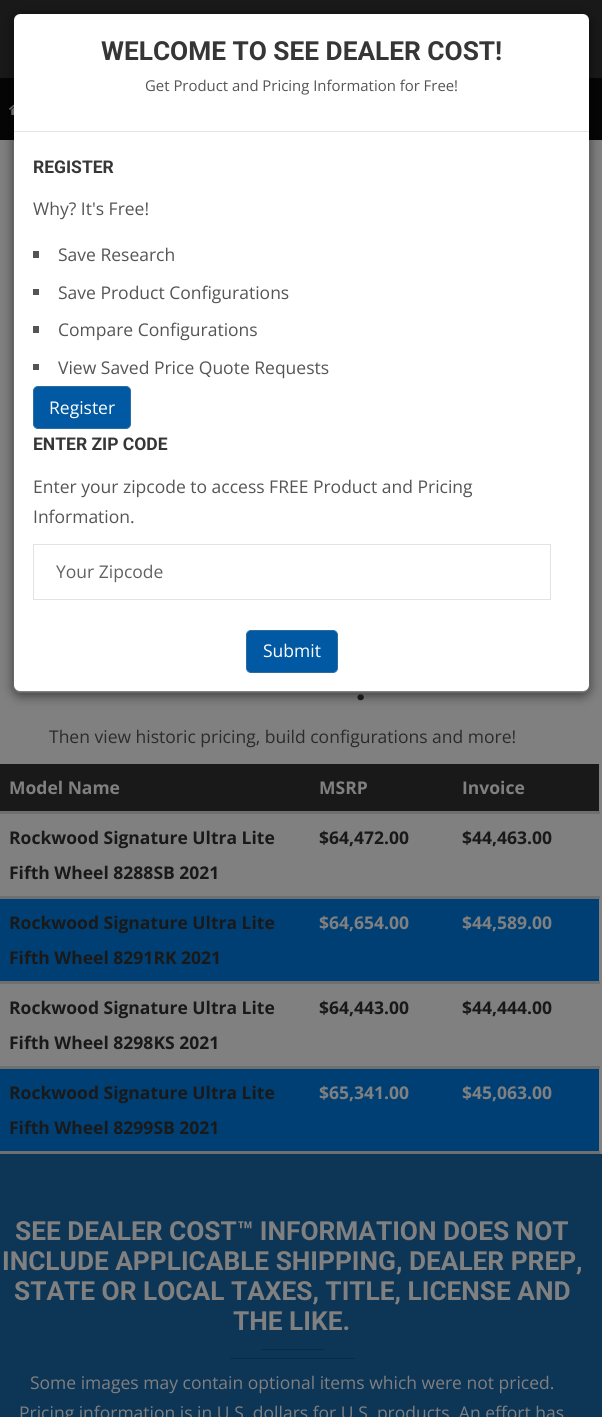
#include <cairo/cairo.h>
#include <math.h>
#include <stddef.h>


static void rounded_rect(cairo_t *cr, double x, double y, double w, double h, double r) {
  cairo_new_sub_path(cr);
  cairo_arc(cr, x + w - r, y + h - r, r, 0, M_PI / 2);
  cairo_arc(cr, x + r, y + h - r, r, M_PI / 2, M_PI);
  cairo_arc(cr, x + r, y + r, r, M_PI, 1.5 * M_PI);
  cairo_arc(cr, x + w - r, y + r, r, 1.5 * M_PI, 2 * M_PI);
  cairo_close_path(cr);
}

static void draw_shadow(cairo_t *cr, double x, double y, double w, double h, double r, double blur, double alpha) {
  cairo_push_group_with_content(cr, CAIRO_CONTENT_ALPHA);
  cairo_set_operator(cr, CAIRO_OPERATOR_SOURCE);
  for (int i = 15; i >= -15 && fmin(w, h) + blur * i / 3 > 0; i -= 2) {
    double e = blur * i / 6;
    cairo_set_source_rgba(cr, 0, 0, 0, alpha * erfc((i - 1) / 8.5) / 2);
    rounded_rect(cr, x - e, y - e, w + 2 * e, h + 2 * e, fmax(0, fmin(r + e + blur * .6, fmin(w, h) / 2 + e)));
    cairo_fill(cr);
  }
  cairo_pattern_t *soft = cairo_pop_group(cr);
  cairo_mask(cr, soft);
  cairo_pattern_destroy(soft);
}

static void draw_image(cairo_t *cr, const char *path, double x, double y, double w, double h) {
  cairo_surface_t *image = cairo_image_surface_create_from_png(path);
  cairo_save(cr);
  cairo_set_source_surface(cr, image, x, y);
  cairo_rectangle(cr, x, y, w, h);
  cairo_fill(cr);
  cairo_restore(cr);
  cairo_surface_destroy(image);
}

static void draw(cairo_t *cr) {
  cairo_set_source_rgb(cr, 128 / 255.0, 128 / 255.0, 128 / 255.0);
  cairo_paint(cr);
  cairo_set_source_rgb(cr, 25 / 255.0, 25 / 255.0, 25 / 255.0);
  cairo_rectangle(cr, 0, 0, 602, 78);
  cairo_fill(cr);
  cairo_set_source_rgb(cr, 5 / 255.0, 5 / 255.0, 5 / 255.0);
  cairo_rectangle(cr, 0, 78, 602, 62);
  cairo_fill(cr);
  draw_image(cr, "images/1.png", 9, 104, 5, 11);
  cairo_save(cr);
  cairo_set_fill_rule(cr, CAIRO_FILL_RULE_EVEN_ODD);
  cairo_new_path(cr);
  cairo_move_to(cr, 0, 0);
  cairo_line_to(cr, 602, 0);
  cairo_line_to(cr, 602, 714);
  cairo_line_to(cr, 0, 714);
  cairo_close_path(cr);
  cairo_move_to(cr, 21, 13);
  cairo_line_to(cr, 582, 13);
  cairo_curve_to(cr, 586.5, 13, 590, 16.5, 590, 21);
  cairo_line_to(cr, 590, 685);
  cairo_curve_to(cr, 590, 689.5, 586.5, 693, 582, 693);
  cairo_line_to(cr, 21, 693);
  cairo_curve_to(cr, 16.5, 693, 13, 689.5, 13, 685);
  cairo_line_to(cr, 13, 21);
  cairo_curve_to(cr, 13, 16.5, 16.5, 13, 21, 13);
  cairo_close_path(cr);
  cairo_clip(cr);
  cairo_set_source_rgb(cr, 0, 0, 0);
  draw_shadow(cr, 13, 16, 577, 680, 8, 5.5, 0.5);
  cairo_restore(cr);
  cairo_set_source_rgb(cr, 1, 1, 1);
  rounded_rect(cr, 14, 14, 575, 677, 6);
  cairo_fill(cr);
  rounded_rect(cr, 13.5, 13.5, 576, 679, 7.5);
  cairo_set_source_rgba(cr, 0, 0, 0, 0.2);
  cairo_set_line_width(cr, 1);
  cairo_stroke(cr);
  cairo_set_source_rgb(cr, 229 / 255.0, 229 / 255.0, 229 / 255.0);
  cairo_rectangle(cr, 14, 131, 575, 1);
  cairo_fill(cr);
  cairo_set_source_rgb(cr, 85 / 255.0, 85 / 255.0, 85 / 255.0);
  cairo_rectangle(cr, 33, 251, 6, 7);
  cairo_fill(cr);
  cairo_rectangle(cr, 33, 289, 6, 6);
  cairo_fill(cr);
  cairo_rectangle(cr, 33, 326, 6, 7);
  cairo_fill(cr);
  cairo_rectangle(cr, 33, 364, 6, 6);
  cairo_fill(cr);
  cairo_set_source_rgb(cr, 0, 89 / 255.0, 162 / 255.0);
  rounded_rect(cr, 33.5, 386.5, 97, 42, 4.5);
  cairo_fill_preserve(cr);
  cairo_set_source_rgb(cr, 46 / 255.0, 109 / 255.0, 164 / 255.0);
  cairo_stroke(cr);
  cairo_rectangle(cr, 33.5, 544.5, 517, 55);
  cairo_set_source_rgb(cr, 227 / 255.0, 227 / 255.0, 227 / 255.0);
  cairo_stroke(cr);
  cairo_set_source_rgb(cr, 0, 89 / 255.0, 162 / 255.0);
  rounded_rect(cr, 246.5, 630.5, 91, 42, 4.5);
  cairo_fill_preserve(cr);
  cairo_set_source_rgb(cr, 46 / 255.0, 109 / 255.0, 164 / 255.0);
  cairo_stroke(cr);
  cairo_set_source_rgb(cr, 0, 63 / 255.0, 115 / 255.0);
  cairo_rectangle(cr, 0, 899, 599, 252);
  cairo_fill(cr);
  cairo_set_source_rgb(cr, 25 / 255.0, 25 / 255.0, 25 / 255.0);
  cairo_rectangle(cr, 0, 764, 599, 47);
  cairo_fill(cr);
  cairo_set_source_rgb(cr, 111 / 255.0, 111 / 255.0, 111 / 255.0);
  cairo_rectangle(cr, 0, 811, 600, 3);
  cairo_fill(cr);
  cairo_rectangle(cr, 0, 896, 600, 3);
  cairo_fill(cr);
  cairo_rectangle(cr, 0, 981, 600, 3);
  cairo_fill(cr);
  cairo_set_source_rgb(cr, 128 / 255.0, 128 / 255.0, 128 / 255.0);
  cairo_rectangle(cr, 0, 984, 599, 82);
  cairo_fill(cr);
  cairo_set_source_rgb(cr, 111 / 255.0, 111 / 255.0, 111 / 255.0);
  cairo_rectangle(cr, 0, 1066, 600, 3);
  cairo_fill(cr);
  cairo_rectangle(cr, 0, 1151, 600, 3);
  cairo_fill(cr);
  cairo_set_source_rgb(cr, 13 / 255.0, 53 / 255.0, 86 / 255.0);
  cairo_rectangle(cr, 0, 1154, 602, 263);
  cairo_fill(cr);
  cairo_set_source_rgb(cr, 0, 45 / 255.0, 81 / 255.0);
  cairo_rectangle(cr, 261, 1349, 63, 1);
  cairo_fill(cr);
  cairo_rectangle(cr, 230, 1358, 125, 1);
  cairo_fill(cr);
  cairo_select_font_face(cr, "Roboto", CAIRO_FONT_SLANT_NORMAL, CAIRO_FONT_WEIGHT_BOLD);
  cairo_set_font_size(cr, 26.25);
  cairo_set_source_rgb(cr, 54 / 255.0, 54 / 255.0, 54 / 255.0);
  cairo_move_to(cr, 101, 60);
  cairo_show_text(cr, "WELCOME TO SEE DEALER COST!");
  cairo_select_font_face(cr, "Open Sans", CAIRO_FONT_SLANT_NORMAL, CAIRO_FONT_WEIGHT_NORMAL);
  cairo_set_font_size(cr, 14.9);
  cairo_set_source_rgb(cr, 85 / 255.0, 85 / 255.0, 85 / 255.0);
  cairo_move_to(cr, 145, 91);
  cairo_show_text(cr, "Get Product and Pricing Information for Free!");
  cairo_select_font_face(cr, "Roboto", CAIRO_FONT_SLANT_NORMAL, CAIRO_FONT_WEIGHT_BOLD);
  cairo_set_font_size(cr, 17.5);
  cairo_set_source_rgb(cr, 54 / 255.0, 54 / 255.0, 54 / 255.0);
  cairo_move_to(cr, 33, 173);
  cairo_show_text(cr, "REGISTER");
  cairo_select_font_face(cr, "Open Sans", CAIRO_FONT_SLANT_NORMAL, CAIRO_FONT_WEIGHT_NORMAL);
  cairo_set_source_rgb(cr, 85 / 255.0, 85 / 255.0, 85 / 255.0);
  cairo_move_to(cr, 33, 215);
  cairo_show_text(cr, "Why? It's Free!");
  cairo_move_to(cr, 58, 261);
  cairo_show_text(cr, "Save Research");
  cairo_move_to(cr, 58, 299);
  cairo_show_text(cr, "Save Product Configurations");
  cairo_move_to(cr, 58, 336);
  cairo_show_text(cr, "Compare Configurations");
  cairo_move_to(cr, 58, 374);
  cairo_show_text(cr, "View Saved Price Quote Requests");
  cairo_set_source_rgb(cr, 1, 1, 1);
  cairo_move_to(cr, 49, 414);
  cairo_show_text(cr, "Register");
  cairo_select_font_face(cr, "Roboto", CAIRO_FONT_SLANT_NORMAL, CAIRO_FONT_WEIGHT_BOLD);
  cairo_set_source_rgb(cr, 54 / 255.0, 54 / 255.0, 54 / 255.0);
  cairo_move_to(cr, 33, 450);
  cairo_show_text(cr, "ENTER ZIP CODE");
  cairo_select_font_face(cr, "Open Sans", CAIRO_FONT_SLANT_NORMAL, CAIRO_FONT_WEIGHT_NORMAL);
  cairo_set_source_rgb(cr, 85 / 255.0, 85 / 255.0, 85 / 255.0);
  cairo_move_to(cr, 33, 493);
  cairo_show_text(cr, "Enter your zipcode to access FREE Product and Pricing");
  cairo_move_to(cr, 33, 523);
  cairo_show_text(cr, "Information.");
  cairo_set_source_rgb(cr, 98 / 255.0, 98 / 255.0, 98 / 255.0);
  cairo_move_to(cr, 56, 578);
  cairo_show_text(cr, "Your Zipcode");
  cairo_set_source_rgb(cr, 1, 1, 1);
  cairo_move_to(cr, 263, 657);
  cairo_show_text(cr, "Submit");
  cairo_select_font_face(cr, "Roboto", CAIRO_FONT_SLANT_NORMAL, CAIRO_FONT_WEIGHT_BOLD);
  cairo_set_font_size(cr, 40);
  cairo_set_source_rgb(cr, 25 / 255.0, 25 / 255.0, 25 / 255.0);
  cairo_move_to(cr, 355, 700);
  cairo_show_text(cr, ".");
  cairo_select_font_face(cr, "Open Sans", CAIRO_FONT_SLANT_NORMAL, CAIRO_FONT_WEIGHT_NORMAL);
  cairo_set_font_size(cr, 17.5);
  cairo_set_source_rgb(cr, 43 / 255.0, 43 / 255.0, 43 / 255.0);
  cairo_move_to(cr, 49, 743);
  cairo_show_text(cr, "Then view historic pricing, build configurations and more!");
  cairo_select_font_face(cr, "Open Sans", CAIRO_FONT_SLANT_NORMAL, CAIRO_FONT_WEIGHT_BOLD);
  cairo_set_source_rgb(cr, 128 / 255.0, 128 / 255.0, 128 / 255.0);
  cairo_move_to(cr, 9, 794);
  cairo_show_text(cr, "Model Name");
  cairo_move_to(cr, 319, 794);
  cairo_show_text(cr, "MSRP");
  cairo_move_to(cr, 462, 794);
  cairo_show_text(cr, "Invoice");
  cairo_set_source_rgb(cr, 25 / 255.0, 25 / 255.0, 25 / 255.0);
  cairo_move_to(cr, 9, 844);
  cairo_show_text(cr, "Rockwood Signature Ultra Lite");
  cairo_move_to(cr, 9, 879);
  cairo_show_text(cr, "Fifth Wheel 8288SB 2021");
  cairo_move_to(cr, 319, 844);
  cairo_show_text(cr, "$64,472.00");
  cairo_move_to(cr, 462, 844);
  cairo_show_text(cr, "$44,463.00");
  cairo_move_to(cr, 9, 929);
  cairo_show_text(cr, "Rockwood Signature Ultra Lite");
  cairo_move_to(cr, 9, 964);
  cairo_show_text(cr, "Fifth Wheel 8291RK 2021");
  cairo_set_source_rgb(cr, 128 / 255.0, 128 / 255.0, 128 / 255.0);
  cairo_move_to(cr, 319, 929);
  cairo_show_text(cr, "$64,654.00");
  cairo_move_to(cr, 462, 929);
  cairo_show_text(cr, "$44,589.00");
  cairo_set_source_rgb(cr, 25 / 255.0, 25 / 255.0, 25 / 255.0);
  cairo_move_to(cr, 9, 1014);
  cairo_show_text(cr, "Rockwood Signature Ultra Lite");
  cairo_move_to(cr, 9, 1049);
  cairo_show_text(cr, "Fifth Wheel 8298KS 2021");
  cairo_move_to(cr, 319, 1014);
  cairo_show_text(cr, "$64,443.00");
  cairo_move_to(cr, 462, 1014);
  cairo_show_text(cr, "$44,444.00");
  cairo_move_to(cr, 9, 1099);
  cairo_show_text(cr, "Rockwood Signature Ultra Lite");
  cairo_move_to(cr, 9, 1134);
  cairo_show_text(cr, "Fifth Wheel 8299SB 2021");
  cairo_set_source_rgb(cr, 128 / 255.0, 128 / 255.0, 128 / 255.0);
  cairo_move_to(cr, 319, 1099);
  cairo_show_text(cr, "$65,341.00");
  cairo_move_to(cr, 462, 1099);
  cairo_show_text(cr, "$45,063.00");
  cairo_select_font_face(cr, "Roboto", CAIRO_FONT_SLANT_NORMAL, CAIRO_FONT_WEIGHT_BOLD);
  cairo_set_font_size(cr, 26.25);
  cairo_move_to(cr, 15, 1240);
  cairo_show_text(cr, "SEE DEALER COST™ INFORMATION DOES NOT");
  cairo_move_to(cr, 2, 1270);
  cairo_show_text(cr, "INCLUDE APPLICABLE SHIPPING, DEALER PREP,");
  cairo_move_to(cr, 14, 1300);
  cairo_show_text(cr, "STATE OR LOCAL TAXES, TITLE, LICENSE AND");
  cairo_move_to(cr, 233, 1330);
  cairo_show_text(cr, "THE LIKE.");
  cairo_select_font_face(cr, "Open Sans", CAIRO_FONT_SLANT_NORMAL, CAIRO_FONT_WEIGHT_NORMAL);
  cairo_set_font_size(cr, 17.5);
  cairo_move_to(cr, 30, 1389);
  cairo_show_text(cr, "Some images may contain optional items which were not priced.");
  cairo_move_to(cr, 19, 1419);
  cairo_show_text(cr, "Pricing information is in U.S. dollars for U.S. products. An effort has");
}

int main(void) {
  cairo_surface_t *surface = cairo_image_surface_create(CAIRO_FORMAT_RGB24, 602, 1417);
  cairo_t *cr = cairo_create(surface);
  cairo_font_options_t *options = cairo_font_options_create();
  cairo_font_options_set_hint_metrics(options, CAIRO_HINT_METRICS_OFF);
  cairo_font_options_set_hint_style(options, CAIRO_HINT_STYLE_NONE);
  cairo_set_font_options(cr, options);
  cairo_set_miter_limit(cr, 4);
  draw(cr);
  cairo_surface_write_to_png(surface, "out.png");
  cairo_font_options_destroy(options);
  cairo_destroy(cr);
  cairo_surface_destroy(surface);
  return 0;
}
